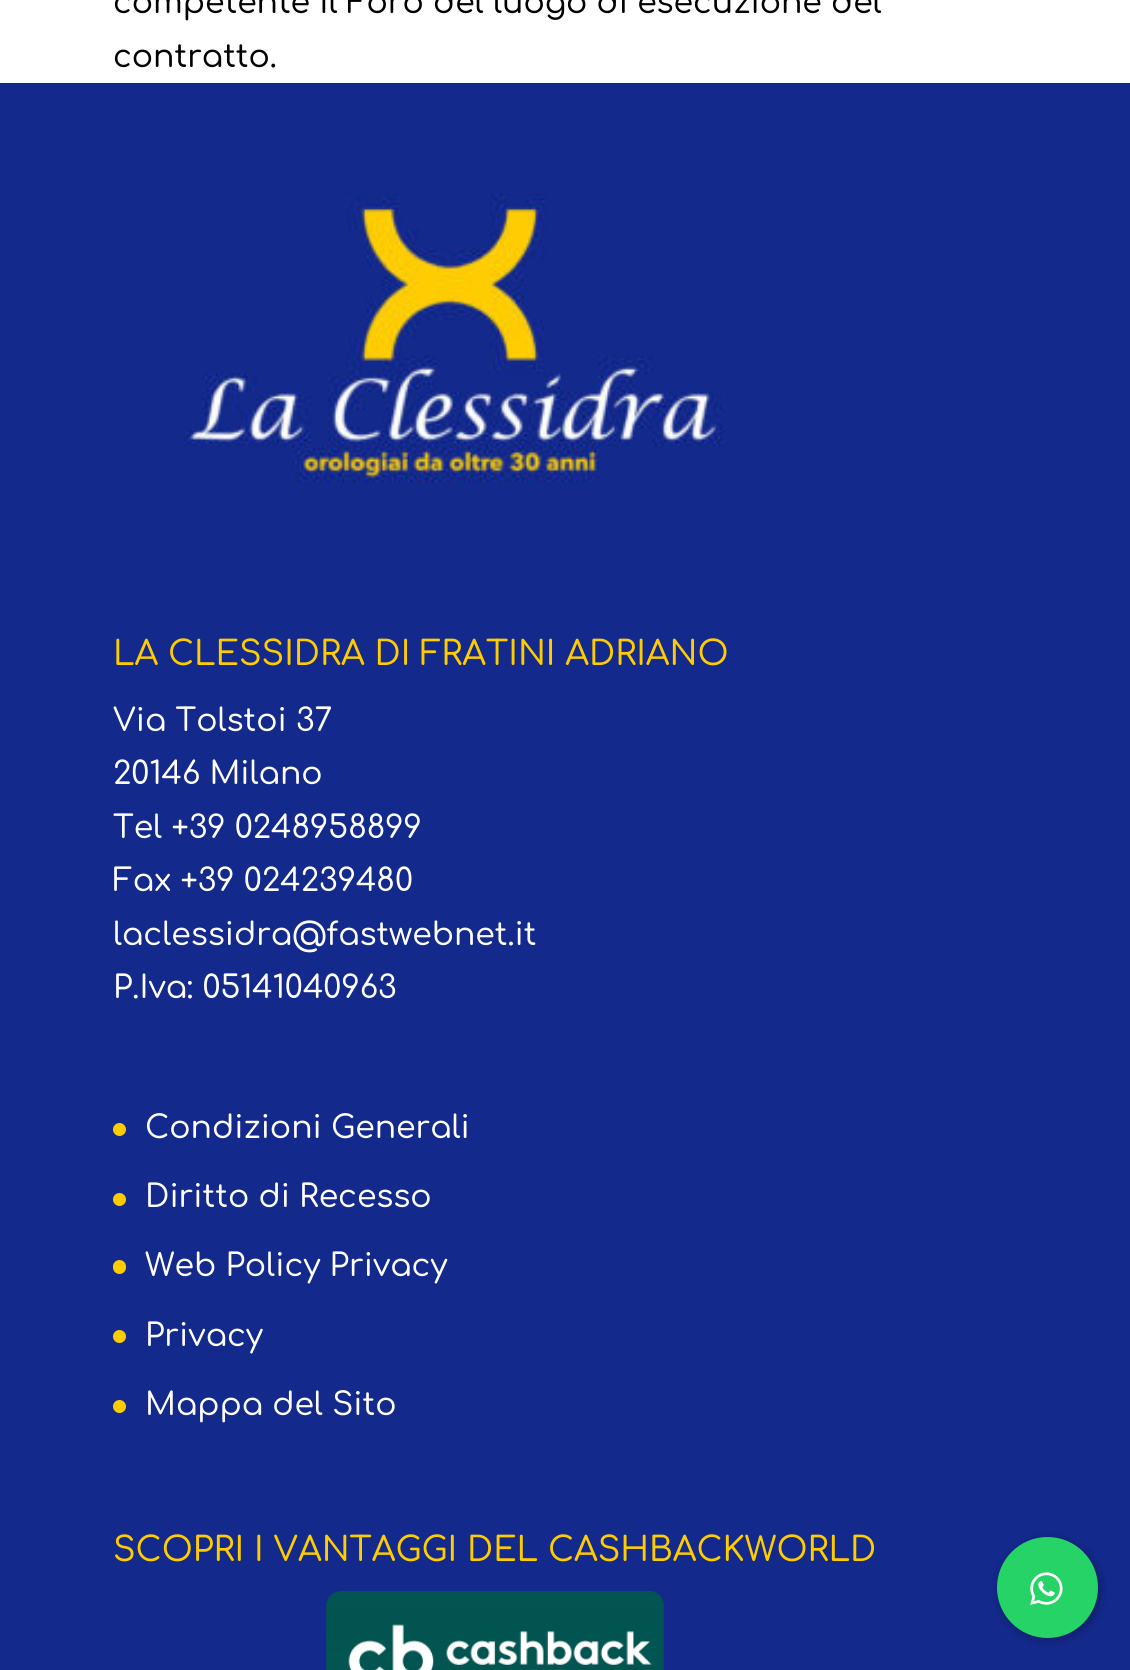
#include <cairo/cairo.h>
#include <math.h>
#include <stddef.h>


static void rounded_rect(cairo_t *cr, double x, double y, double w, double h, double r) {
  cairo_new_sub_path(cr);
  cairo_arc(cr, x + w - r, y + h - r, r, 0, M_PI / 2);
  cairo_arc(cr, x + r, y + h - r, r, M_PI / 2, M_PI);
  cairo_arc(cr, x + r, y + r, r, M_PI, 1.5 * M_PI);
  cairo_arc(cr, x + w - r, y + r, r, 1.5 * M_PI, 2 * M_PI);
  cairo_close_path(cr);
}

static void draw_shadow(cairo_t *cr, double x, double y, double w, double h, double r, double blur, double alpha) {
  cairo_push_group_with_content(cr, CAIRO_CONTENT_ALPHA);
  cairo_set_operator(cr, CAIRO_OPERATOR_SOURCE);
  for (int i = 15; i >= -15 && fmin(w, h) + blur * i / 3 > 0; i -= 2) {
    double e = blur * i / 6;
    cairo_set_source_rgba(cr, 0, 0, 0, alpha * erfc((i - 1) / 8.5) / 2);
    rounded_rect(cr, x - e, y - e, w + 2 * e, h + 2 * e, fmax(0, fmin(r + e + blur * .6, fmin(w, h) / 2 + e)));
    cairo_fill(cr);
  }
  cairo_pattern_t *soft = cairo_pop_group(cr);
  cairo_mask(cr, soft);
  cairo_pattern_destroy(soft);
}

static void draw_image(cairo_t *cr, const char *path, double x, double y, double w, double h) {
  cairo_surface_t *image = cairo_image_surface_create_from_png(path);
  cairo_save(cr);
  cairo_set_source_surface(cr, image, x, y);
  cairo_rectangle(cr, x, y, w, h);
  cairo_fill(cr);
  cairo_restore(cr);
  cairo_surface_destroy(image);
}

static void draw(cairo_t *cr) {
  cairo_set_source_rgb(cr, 1, 1, 1);
  cairo_paint(cr);
  cairo_set_source_rgb(cr, 19 / 255.0, 41 / 255.0, 140 / 255.0);
  cairo_rectangle(cr, 0, 83, 1130, 1587);
  cairo_fill(cr);
  draw_image(cr, "images/1.png", 184, 193, 541, 290);
  cairo_set_source_rgb(cr, 1, 204 / 255.0, 0);
  cairo_arc(cr, 119.5, 1129.5, 6.5, 0, 2 * M_PI);
  cairo_fill(cr);
  cairo_arc(cr, 119.5, 1199.5, 6.5, 0, 2 * M_PI);
  cairo_fill(cr);
  rounded_rect(cr, 113, 1260, 13, 14, 6.5);
  cairo_fill(cr);
  cairo_arc(cr, 119.5, 1336.5, 6.5, 0, 2 * M_PI);
  cairo_fill(cr);
  cairo_arc(cr, 119.5, 1406.5, 6.5, 0, 2 * M_PI);
  cairo_fill(cr);
  draw_image(cr, "images/2.png", 326, 1591, 338, 79);
  cairo_set_source_rgb(cr, 0, 0, 0);
  draw_shadow(cr, 999, 1539, 101, 101, 50.5, 4.5, 0.3);
  cairo_set_source_rgb(cr, 37 / 255.0, 211 / 255.0, 102 / 255.0);
  cairo_arc(cr, 1047.5, 1587.5, 50.5, 0, 2 * M_PI);
  cairo_fill(cr);
  draw_image(cr, "images/3.png", 1030, 1572, 33, 33);
  cairo_select_font_face(cr, "Comfortaa Medium", CAIRO_FONT_SLANT_NORMAL, CAIRO_FONT_WEIGHT_NORMAL);
  cairo_set_font_size(cr, 31.5);
  cairo_set_source_rgb(cr, 0, 0, 0);
  cairo_move_to(cr, 113, 13);
  cairo_show_text(cr, "competente il Foro del luogo di esecuzione del");
  cairo_move_to(cr, 113, 67);
  cairo_show_text(cr, "contratto.");
  cairo_set_font_size(cr, 33.75);
  cairo_set_source_rgb(cr, 1, 204 / 255.0, 0);
  cairo_move_to(cr, 113, 665);
  cairo_show_text(cr, "LA CLESSIDRA DI FRATINI ADRIANO");
  cairo_set_font_size(cr, 31.5);
  cairo_set_source_rgb(cr, 1, 1, 1);
  cairo_move_to(cr, 113, 731);
  cairo_show_text(cr, "Via Tolstoi 37");
  cairo_move_to(cr, 113, 784);
  cairo_show_text(cr, "20146 Milano");
  cairo_move_to(cr, 113, 838);
  cairo_show_text(cr, "Tel +39 0248958899");
  cairo_move_to(cr, 113, 891);
  cairo_show_text(cr, "Fax +39 024239480");
  cairo_move_to(cr, 113, 945);
  cairo_show_text(cr, "laclessidra@fastwebnet.it");
  cairo_move_to(cr, 113, 998);
  cairo_show_text(cr, "P.Iva: 05141040963");
  cairo_move_to(cr, 145, 1138);
  cairo_show_text(cr, "Condizioni Generali");
  cairo_move_to(cr, 145, 1207);
  cairo_show_text(cr, "Diritto di Recesso");
  cairo_move_to(cr, 145, 1276);
  cairo_show_text(cr, "Web Policy Privacy");
  cairo_move_to(cr, 145, 1346);
  cairo_show_text(cr, "Privacy");
  cairo_move_to(cr, 145, 1415);
  cairo_show_text(cr, "Mappa del Sito");
  cairo_set_font_size(cr, 33.75);
  cairo_set_source_rgb(cr, 1, 204 / 255.0, 0);
  cairo_move_to(cr, 113, 1561);
  cairo_show_text(cr, "SCOPRI I VANTAGGI DEL CASHBACKWORLD");
}

int main(void) {
  cairo_surface_t *surface = cairo_image_surface_create(CAIRO_FORMAT_RGB24, 1130, 1670);
  cairo_t *cr = cairo_create(surface);
  cairo_font_options_t *options = cairo_font_options_create();
  cairo_font_options_set_hint_metrics(options, CAIRO_HINT_METRICS_OFF);
  cairo_font_options_set_hint_style(options, CAIRO_HINT_STYLE_NONE);
  cairo_set_font_options(cr, options);
  cairo_set_miter_limit(cr, 4);
  draw(cr);
  cairo_surface_write_to_png(surface, "out.png");
  cairo_font_options_destroy(options);
  cairo_destroy(cr);
  cairo_surface_destroy(surface);
  return 0;
}
